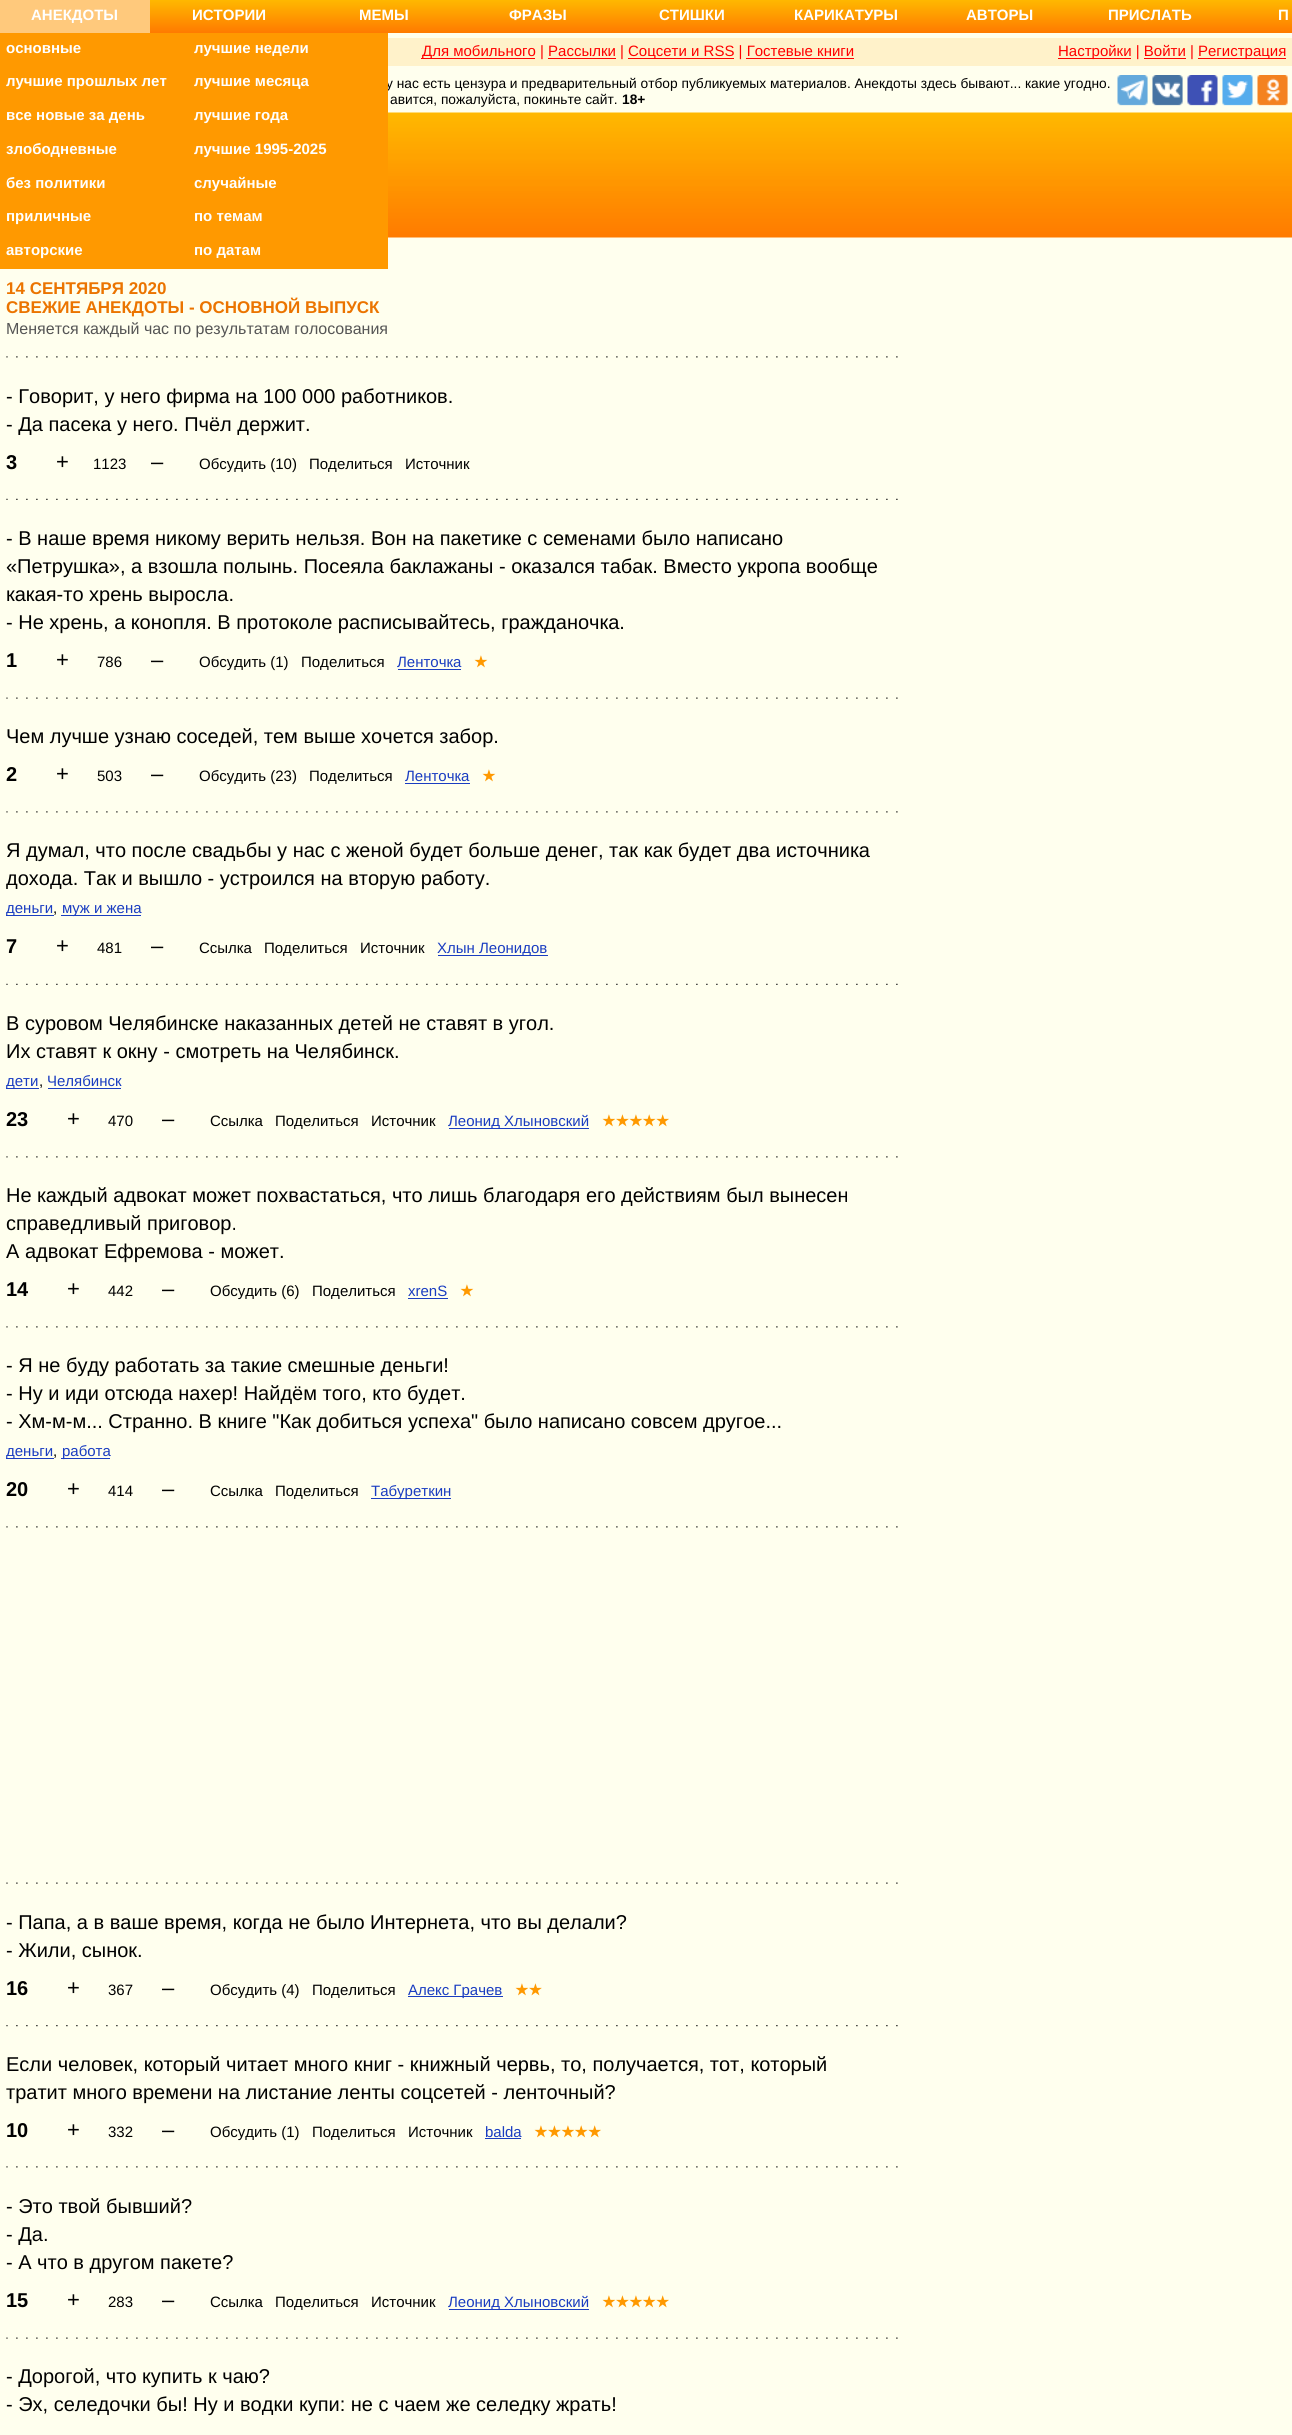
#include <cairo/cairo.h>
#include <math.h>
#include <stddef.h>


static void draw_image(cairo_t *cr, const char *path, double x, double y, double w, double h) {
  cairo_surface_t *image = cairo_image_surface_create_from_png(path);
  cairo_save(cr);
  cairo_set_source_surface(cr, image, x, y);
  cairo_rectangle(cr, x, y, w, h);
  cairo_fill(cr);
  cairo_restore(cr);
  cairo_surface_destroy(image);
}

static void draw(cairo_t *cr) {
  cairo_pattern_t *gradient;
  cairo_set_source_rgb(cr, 1, 1, 238 / 255.0);
  cairo_paint(cr);
  gradient = cairo_pattern_create_linear(646, 0, 646, 33);
  cairo_pattern_add_color_stop_rgba(gradient, 0, 1, 184 / 255.0, 0, 1);
  cairo_pattern_add_color_stop_rgba(gradient, 1, 1, 122 / 255.0, 0, 1);
  cairo_set_source(cr, gradient);
  cairo_pattern_destroy(gradient);
  cairo_rectangle(cr, 150, 0, 1142, 33);
  cairo_fill(cr);
  cairo_set_source_rgb(cr, 1, 201 / 255.0, 124 / 255.0);
  cairo_rectangle(cr, 0, 0, 150, 33);
  cairo_fill(cr);
  cairo_set_source_rgb(cr, 1, 153 / 255.0, 0);
  cairo_rectangle(cr, 0, 33, 188, 236);
  cairo_fill(cr);
  cairo_set_source_rgb(cr, 1, 242 / 255.0, 202 / 255.0);
  cairo_rectangle(cr, 388, 38, 904, 28);
  cairo_fill(cr);
  cairo_set_source_rgb(cr, 1, 0, 0);
  cairo_rectangle(cr, 421, 58, 114, 1);
  cairo_fill(cr);
  cairo_rectangle(cr, 628, 58, 106, 1);
  cairo_fill(cr);
  cairo_rectangle(cr, 1058, 58, 73, 1);
  cairo_fill(cr);
  cairo_rectangle(cr, 1198, 58, 88, 1);
  cairo_fill(cr);
  cairo_rectangle(cr, 1144, 58, 42, 1);
  cairo_fill(cr);
  cairo_rectangle(cr, 548, 58, 68, 1);
  cairo_fill(cr);
  cairo_rectangle(cr, 746, 58, 108, 1);
  cairo_fill(cr);
  draw_image(cr, "images/1.png", 388, 112, 904, 126);
  draw_image(cr, "images/2.png", 1117, 75, 31, 31);
  draw_image(cr, "images/3.png", 1152, 75, 31, 31);
  draw_image(cr, "images/4.png", 1187, 75, 31, 31);
  draw_image(cr, "images/5.png", 1222, 75, 31, 31);
  draw_image(cr, "images/6.png", 1257, 75, 31, 31);
  draw_image(cr, "images/7.png", 6, 356, 892, 2);
  draw_image(cr, "images/8.png", 6, 498, 892, 2);
  draw_image(cr, "images/9.png", 6, 697, 892, 2);
  cairo_set_source_rgb(cr, 26 / 255.0, 61 / 255.0, 193 / 255.0);
  cairo_rectangle(cr, 398, 669, 63, 1);
  cairo_fill(cr);
  draw_image(cr, "images/7.png", 6, 811, 892, 2);
  cairo_rectangle(cr, 405, 783, 65, 1);
  cairo_fill(cr);
  draw_image(cr, "images/8.png", 6, 983, 892, 2);
  cairo_rectangle(cr, 6, 915, 48, 1);
  cairo_fill(cr);
  cairo_rectangle(cr, 61, 915, 80, 1);
  cairo_fill(cr);
  cairo_rectangle(cr, 438, 955, 110, 1);
  cairo_fill(cr);
  draw_image(cr, "images/7.png", 6, 1156, 892, 2);
  cairo_rectangle(cr, 6, 1088, 33, 1);
  cairo_fill(cr);
  cairo_rectangle(cr, 48, 1088, 73, 1);
  cairo_fill(cr);
  cairo_rectangle(cr, 449, 1128, 140, 1);
  cairo_fill(cr);
  draw_image(cr, "images/7.png", 6, 1326, 892, 2);
  cairo_rectangle(cr, 408, 1298, 40, 1);
  cairo_fill(cr);
  draw_image(cr, "images/7.png", 6, 1526, 892, 2);
  cairo_rectangle(cr, 6, 1458, 48, 1);
  cairo_fill(cr);
  cairo_rectangle(cr, 61, 1458, 49, 1);
  cairo_fill(cr);
  cairo_rectangle(cr, 371, 1498, 80, 1);
  cairo_fill(cr);
  draw_image(cr, "images/9.png", 6, 1882, 892, 2);
  draw_image(cr, "images/10.png", 6, 2025, 892, 2);
  cairo_rectangle(cr, 408, 1996, 95, 1);
  cairo_fill(cr);
  draw_image(cr, "images/7.png", 6, 2166, 892, 2);
  cairo_rectangle(cr, 485, 2138, 36, 1);
  cairo_fill(cr);
  draw_image(cr, "images/9.png", 6, 2337, 892, 2);
  cairo_rectangle(cr, 449, 2309, 140, 1);
  cairo_fill(cr);
  cairo_select_font_face(cr, "Liberation Sans", CAIRO_FONT_SLANT_NORMAL, CAIRO_FONT_WEIGHT_BOLD);
  cairo_set_font_size(cr, 15);
  cairo_set_source_rgb(cr, 1, 1, 1);
  cairo_move_to(cr, 31, 20);
  cairo_show_text(cr, "АНЕКДОТЫ");
  cairo_move_to(cr, 6, 53);
  cairo_show_text(cr, "основные");
  cairo_move_to(cr, 6, 86);
  cairo_show_text(cr, "лучшие прошлых лет");
  cairo_move_to(cr, 6, 120);
  cairo_show_text(cr, "все новые за день");
  cairo_move_to(cr, 6, 154);
  cairo_show_text(cr, "злободневные");
  cairo_move_to(cr, 6, 188);
  cairo_show_text(cr, "без политики");
  cairo_move_to(cr, 6, 221);
  cairo_show_text(cr, "приличные");
  cairo_move_to(cr, 6, 255);
  cairo_show_text(cr, "авторские");
  cairo_move_to(cr, 192, 20);
  cairo_show_text(cr, "ИСТОРИИ");
  cairo_move_to(cr, 359, 20);
  cairo_show_text(cr, "МЕМЫ");
  cairo_move_to(cr, 509, 20);
  cairo_show_text(cr, "ФРАЗЫ");
  cairo_move_to(cr, 659, 20);
  cairo_show_text(cr, "СТИШКИ");
  cairo_move_to(cr, 794, 20);
  cairo_show_text(cr, "КАРИКАТУРЫ");
  cairo_move_to(cr, 966, 20);
  cairo_show_text(cr, "АВТОРЫ");
  cairo_move_to(cr, 1108, 20);
  cairo_show_text(cr, "ПРИСЛАТЬ");
  cairo_move_to(cr, 1278, 20);
  cairo_show_text(cr, "П");
  cairo_select_font_face(cr, "Liberation Sans", CAIRO_FONT_SLANT_NORMAL, CAIRO_FONT_WEIGHT_NORMAL);
  cairo_set_source_rgb(cr, 1, 0, 0);
  cairo_move_to(cr, 422, 56);
  cairo_show_text(cr, "Для мобильного | Рассылки |");
  cairo_move_to(cr, 628, 56);
  cairo_show_text(cr, "Соцсети и RSS | Гостевые книги");
  cairo_move_to(cr, 1058, 56);
  cairo_show_text(cr, "Настройки | Войти |");
  cairo_move_to(cr, 1198, 56);
  cairo_show_text(cr, "Регистрация");
  cairo_set_font_size(cr, 13.75);
  cairo_set_source_rgb(cr, 0, 0, 0);
  cairo_move_to(cr, 386, 88);
  cairo_show_text(cr, "у нас есть цензура и предварительный отбор публикуемых материалов. Анекдоты здесь бывают... какие угодно.");
  cairo_set_source_rgb(cr, 1, 153 / 255.0, 0);
  cairo_rectangle(cr, 188, 33, 200, 236);
  cairo_fill(cr);
  cairo_select_font_face(cr, "Liberation Sans", CAIRO_FONT_SLANT_NORMAL, CAIRO_FONT_WEIGHT_BOLD);
  cairo_set_font_size(cr, 15);
  cairo_set_source_rgb(cr, 1, 1, 1);
  cairo_move_to(cr, 194, 255);
  cairo_show_text(cr, "по датам");
  cairo_move_to(cr, 194, 221);
  cairo_show_text(cr, "по темам");
  cairo_move_to(cr, 194, 188);
  cairo_show_text(cr, "случайные");
  cairo_move_to(cr, 194, 154);
  cairo_show_text(cr, "лучшие 1995-2025");
  cairo_move_to(cr, 194, 120);
  cairo_show_text(cr, "лучшие года");
  cairo_move_to(cr, 194, 86);
  cairo_show_text(cr, "лучшие месяца");
  cairo_move_to(cr, 194, 53);
  cairo_show_text(cr, "лучшие недели");
  cairo_select_font_face(cr, "Liberation Sans", CAIRO_FONT_SLANT_NORMAL, CAIRO_FONT_WEIGHT_NORMAL);
  cairo_set_font_size(cr, 13.75);
  cairo_set_source_rgb(cr, 0, 0, 0);
  cairo_move_to(cr, 390, 104);
  cairo_show_text(cr, "авится, пожалуйста, покиньте сайт.");
  cairo_select_font_face(cr, "Liberation Sans", CAIRO_FONT_SLANT_NORMAL, CAIRO_FONT_WEIGHT_BOLD);
  cairo_move_to(cr, 622, 104);
  cairo_show_text(cr, "18+");
  cairo_set_font_size(cr, 17);
  cairo_set_source_rgb(cr, 235 / 255.0, 116 / 255.0, 0);
  cairo_move_to(cr, 6, 294);
  cairo_show_text(cr, "14 СЕНТЯБРЯ 2020");
  cairo_move_to(cr, 6, 313);
  cairo_show_text(cr, "СВЕЖИЕ АНЕКДОТЫ - ОСНОВНОЙ ВЫПУСК");
  cairo_select_font_face(cr, "Liberation Sans", CAIRO_FONT_SLANT_NORMAL, CAIRO_FONT_WEIGHT_NORMAL);
  cairo_set_font_size(cr, 16);
  cairo_set_source_rgb(cr, 85 / 255.0, 85 / 255.0, 85 / 255.0);
  cairo_move_to(cr, 6, 334);
  cairo_show_text(cr, "Меняется каждый час по результатам голосования");
  cairo_set_font_size(cr, 20);
  cairo_set_source_rgb(cr, 0, 0, 0);
  cairo_move_to(cr, 6, 403);
  cairo_show_text(cr, "- Говорит, у него фирма на 100 000 работников.");
  cairo_move_to(cr, 6, 431);
  cairo_show_text(cr, "- Да пасека у него. Пчёл держит.");
  cairo_select_font_face(cr, "Liberation Sans", CAIRO_FONT_SLANT_NORMAL, CAIRO_FONT_WEIGHT_BOLD);
  cairo_move_to(cr, 6, 469);
  cairo_show_text(cr, "3");
  cairo_select_font_face(cr, "Liberation Sans", CAIRO_FONT_SLANT_NORMAL, CAIRO_FONT_WEIGHT_NORMAL);
  cairo_set_font_size(cr, 22);
  cairo_move_to(cr, 56, 469);
  cairo_show_text(cr, "+");
  cairo_set_font_size(cr, 15);
  cairo_move_to(cr, 93, 469);
  cairo_show_text(cr, "1123");
  cairo_set_font_size(cr, 22);
  cairo_move_to(cr, 151, 469);
  cairo_show_text(cr, "–");
  cairo_set_font_size(cr, 15);
  cairo_move_to(cr, 199, 469);
  cairo_show_text(cr, "Обсудить (10)");
  cairo_move_to(cr, 309, 469);
  cairo_show_text(cr, "Поделиться");
  cairo_move_to(cr, 405, 469);
  cairo_show_text(cr, "Источник");
  cairo_set_font_size(cr, 20);
  cairo_move_to(cr, 6, 545);
  cairo_show_text(cr, "- В наше время никому верить нельзя. Вон на пакетике с семенами было написано");
  cairo_move_to(cr, 6, 573);
  cairo_show_text(cr, "«Петрушка», а взошла полынь. Посеяла баклажаны - оказался табак. Вместо укропа вообще");
  cairo_move_to(cr, 6, 601);
  cairo_show_text(cr, "какая-то хрень выросла.");
  cairo_move_to(cr, 6, 629);
  cairo_show_text(cr, "- Не хрень, а конопля. В протоколе расписывайтесь, гражданочка.");
  cairo_select_font_face(cr, "Liberation Sans", CAIRO_FONT_SLANT_NORMAL, CAIRO_FONT_WEIGHT_BOLD);
  cairo_move_to(cr, 6, 667);
  cairo_show_text(cr, "1");
  cairo_select_font_face(cr, "Liberation Sans", CAIRO_FONT_SLANT_NORMAL, CAIRO_FONT_WEIGHT_NORMAL);
  cairo_set_font_size(cr, 22);
  cairo_move_to(cr, 56, 667);
  cairo_show_text(cr, "+");
  cairo_set_font_size(cr, 15);
  cairo_move_to(cr, 97, 667);
  cairo_show_text(cr, "786");
  cairo_set_font_size(cr, 22);
  cairo_move_to(cr, 151, 667);
  cairo_show_text(cr, "–");
  cairo_set_font_size(cr, 15);
  cairo_move_to(cr, 199, 667);
  cairo_show_text(cr, "Обсудить (1)");
  cairo_move_to(cr, 301, 667);
  cairo_show_text(cr, "Поделиться");
  cairo_set_source_rgb(cr, 26 / 255.0, 61 / 255.0, 193 / 255.0);
  cairo_move_to(cr, 397, 667);
  cairo_show_text(cr, "Ленточка");
  cairo_select_font_face(cr, "DejaVu Sans", CAIRO_FONT_SLANT_NORMAL, CAIRO_FONT_WEIGHT_BOLD);
  cairo_set_source_rgb(cr, 1, 153 / 255.0, 0);
  cairo_move_to(cr, 474, 667);
  cairo_show_text(cr, "★");
  cairo_select_font_face(cr, "Liberation Sans", CAIRO_FONT_SLANT_NORMAL, CAIRO_FONT_WEIGHT_NORMAL);
  cairo_set_font_size(cr, 20);
  cairo_set_source_rgb(cr, 0, 0, 0);
  cairo_move_to(cr, 6, 743);
  cairo_show_text(cr, "Чем лучше узнаю соседей, тем выше хочется забор.");
  cairo_select_font_face(cr, "Liberation Sans", CAIRO_FONT_SLANT_NORMAL, CAIRO_FONT_WEIGHT_BOLD);
  cairo_move_to(cr, 6, 781);
  cairo_show_text(cr, "2");
  cairo_select_font_face(cr, "Liberation Sans", CAIRO_FONT_SLANT_NORMAL, CAIRO_FONT_WEIGHT_NORMAL);
  cairo_set_font_size(cr, 22);
  cairo_move_to(cr, 56, 781);
  cairo_show_text(cr, "+");
  cairo_set_font_size(cr, 15);
  cairo_move_to(cr, 97, 781);
  cairo_show_text(cr, "503");
  cairo_set_font_size(cr, 22);
  cairo_move_to(cr, 151, 781);
  cairo_show_text(cr, "–");
  cairo_set_font_size(cr, 15);
  cairo_move_to(cr, 199, 781);
  cairo_show_text(cr, "Обсудить (23)");
  cairo_move_to(cr, 309, 781);
  cairo_show_text(cr, "Поделиться");
  cairo_set_source_rgb(cr, 26 / 255.0, 61 / 255.0, 193 / 255.0);
  cairo_move_to(cr, 405, 781);
  cairo_show_text(cr, "Ленточка");
  cairo_select_font_face(cr, "DejaVu Sans", CAIRO_FONT_SLANT_NORMAL, CAIRO_FONT_WEIGHT_BOLD);
  cairo_set_source_rgb(cr, 1, 153 / 255.0, 0);
  cairo_move_to(cr, 482, 781);
  cairo_show_text(cr, "★");
  cairo_select_font_face(cr, "Liberation Sans", CAIRO_FONT_SLANT_NORMAL, CAIRO_FONT_WEIGHT_NORMAL);
  cairo_set_font_size(cr, 20);
  cairo_set_source_rgb(cr, 0, 0, 0);
  cairo_move_to(cr, 6, 857);
  cairo_show_text(cr, "Я думал, что после свадьбы у нас с женой будет больше денег, так как будет два источника");
  cairo_move_to(cr, 6, 885);
  cairo_show_text(cr, "дохода. Так и вышло - устроился на вторую работу.");
  cairo_set_font_size(cr, 15);
  cairo_set_source_rgb(cr, 26 / 255.0, 61 / 255.0, 193 / 255.0);
  cairo_move_to(cr, 6, 913);
  cairo_show_text(cr, "деньги");
  cairo_set_source_rgb(cr, 0, 0, 0);
  cairo_move_to(cr, 53, 913);
  cairo_show_text(cr, ",");
  cairo_set_source_rgb(cr, 26 / 255.0, 61 / 255.0, 193 / 255.0);
  cairo_move_to(cr, 62, 913);
  cairo_show_text(cr, "муж и жена");
  cairo_select_font_face(cr, "Liberation Sans", CAIRO_FONT_SLANT_NORMAL, CAIRO_FONT_WEIGHT_BOLD);
  cairo_set_font_size(cr, 20);
  cairo_set_source_rgb(cr, 0, 0, 0);
  cairo_move_to(cr, 6, 953);
  cairo_show_text(cr, "7");
  cairo_select_font_face(cr, "Liberation Sans", CAIRO_FONT_SLANT_NORMAL, CAIRO_FONT_WEIGHT_NORMAL);
  cairo_set_font_size(cr, 22);
  cairo_move_to(cr, 56, 953);
  cairo_show_text(cr, "+");
  cairo_set_font_size(cr, 15);
  cairo_move_to(cr, 97, 953);
  cairo_show_text(cr, "481");
  cairo_set_font_size(cr, 22);
  cairo_move_to(cr, 151, 953);
  cairo_show_text(cr, "–");
  cairo_set_font_size(cr, 15);
  cairo_move_to(cr, 199, 953);
  cairo_show_text(cr, "Ссылка");
  cairo_move_to(cr, 264, 953);
  cairo_show_text(cr, "Поделиться");
  cairo_move_to(cr, 360, 953);
  cairo_show_text(cr, "Источник");
  cairo_set_source_rgb(cr, 26 / 255.0, 61 / 255.0, 193 / 255.0);
  cairo_move_to(cr, 437, 953);
  cairo_show_text(cr, "Хлын Леонидов");
  cairo_set_font_size(cr, 20);
  cairo_set_source_rgb(cr, 0, 0, 0);
  cairo_move_to(cr, 6, 1030);
  cairo_show_text(cr, "В суровом Челябинске наказанных детей не ставят в угол.");
  cairo_move_to(cr, 6, 1058);
  cairo_show_text(cr, "Их ставят к окну - смотреть на Челябинск.");
  cairo_set_font_size(cr, 15);
  cairo_set_source_rgb(cr, 26 / 255.0, 61 / 255.0, 193 / 255.0);
  cairo_move_to(cr, 6, 1086);
  cairo_show_text(cr, "дети");
  cairo_set_source_rgb(cr, 0, 0, 0);
  cairo_move_to(cr, 39, 1086);
  cairo_show_text(cr, ",");
  cairo_set_source_rgb(cr, 26 / 255.0, 61 / 255.0, 193 / 255.0);
  cairo_move_to(cr, 47, 1086);
  cairo_show_text(cr, "Челябинск");
  cairo_select_font_face(cr, "Liberation Sans", CAIRO_FONT_SLANT_NORMAL, CAIRO_FONT_WEIGHT_BOLD);
  cairo_set_font_size(cr, 20);
  cairo_set_source_rgb(cr, 0, 0, 0);
  cairo_move_to(cr, 6, 1126);
  cairo_show_text(cr, "23");
  cairo_select_font_face(cr, "Liberation Sans", CAIRO_FONT_SLANT_NORMAL, CAIRO_FONT_WEIGHT_NORMAL);
  cairo_set_font_size(cr, 22);
  cairo_move_to(cr, 67, 1126);
  cairo_show_text(cr, "+");
  cairo_set_font_size(cr, 15);
  cairo_move_to(cr, 108, 1126);
  cairo_show_text(cr, "470");
  cairo_set_font_size(cr, 22);
  cairo_move_to(cr, 162, 1126);
  cairo_show_text(cr, "–");
  cairo_set_font_size(cr, 15);
  cairo_move_to(cr, 210, 1126);
  cairo_show_text(cr, "Ссылка");
  cairo_move_to(cr, 275, 1126);
  cairo_show_text(cr, "Поделиться");
  cairo_move_to(cr, 371, 1126);
  cairo_show_text(cr, "Источник");
  cairo_set_source_rgb(cr, 26 / 255.0, 61 / 255.0, 193 / 255.0);
  cairo_move_to(cr, 448, 1126);
  cairo_show_text(cr, "Леонид Хлыновский");
  cairo_select_font_face(cr, "DejaVu Sans", CAIRO_FONT_SLANT_NORMAL, CAIRO_FONT_WEIGHT_BOLD);
  cairo_set_source_rgb(cr, 1, 153 / 255.0, 0);
  cairo_move_to(cr, 602, 1126);
  cairo_show_text(cr, "★★★★★");
  cairo_select_font_face(cr, "Liberation Sans", CAIRO_FONT_SLANT_NORMAL, CAIRO_FONT_WEIGHT_NORMAL);
  cairo_set_font_size(cr, 20);
  cairo_set_source_rgb(cr, 0, 0, 0);
  cairo_move_to(cr, 6, 1202);
  cairo_show_text(cr, "Не каждый адвокат может похвастаться, что лишь благодаря его действиям был вынесен");
  cairo_move_to(cr, 6, 1230);
  cairo_show_text(cr, "справедливый приговор.");
  cairo_move_to(cr, 6, 1258);
  cairo_show_text(cr, "А адвокат Ефремова - может.");
  cairo_select_font_face(cr, "Liberation Sans", CAIRO_FONT_SLANT_NORMAL, CAIRO_FONT_WEIGHT_BOLD);
  cairo_move_to(cr, 6, 1296);
  cairo_show_text(cr, "14");
  cairo_select_font_face(cr, "Liberation Sans", CAIRO_FONT_SLANT_NORMAL, CAIRO_FONT_WEIGHT_NORMAL);
  cairo_set_font_size(cr, 22);
  cairo_move_to(cr, 67, 1296);
  cairo_show_text(cr, "+");
  cairo_set_font_size(cr, 15);
  cairo_move_to(cr, 108, 1296);
  cairo_show_text(cr, "442");
  cairo_set_font_size(cr, 22);
  cairo_move_to(cr, 162, 1296);
  cairo_show_text(cr, "–");
  cairo_set_font_size(cr, 15);
  cairo_move_to(cr, 210, 1296);
  cairo_show_text(cr, "Обсудить (6)");
  cairo_move_to(cr, 312, 1296);
  cairo_show_text(cr, "Поделиться");
  cairo_set_source_rgb(cr, 26 / 255.0, 61 / 255.0, 193 / 255.0);
  cairo_move_to(cr, 408, 1296);
  cairo_show_text(cr, "xrenS");
  cairo_select_font_face(cr, "DejaVu Sans", CAIRO_FONT_SLANT_NORMAL, CAIRO_FONT_WEIGHT_BOLD);
  cairo_set_source_rgb(cr, 1, 153 / 255.0, 0);
  cairo_move_to(cr, 460, 1296);
  cairo_show_text(cr, "★");
  cairo_select_font_face(cr, "Liberation Sans", CAIRO_FONT_SLANT_NORMAL, CAIRO_FONT_WEIGHT_NORMAL);
  cairo_set_font_size(cr, 20);
  cairo_set_source_rgb(cr, 0, 0, 0);
  cairo_move_to(cr, 6, 1372);
  cairo_show_text(cr, "- Я не буду работать за такие смешные деньги!");
  cairo_move_to(cr, 6, 1400);
  cairo_show_text(cr, "- Ну и иди отсюда нахер! Найдём того, кто будет.");
  cairo_move_to(cr, 6, 1428);
  cairo_show_text(cr, "- Хм-м-м... Странно. В книге \"Как добиться успеха\" было написано совсем другое...");
  cairo_set_font_size(cr, 15);
  cairo_set_source_rgb(cr, 26 / 255.0, 61 / 255.0, 193 / 255.0);
  cairo_move_to(cr, 6, 1456);
  cairo_show_text(cr, "деньги");
  cairo_set_source_rgb(cr, 0, 0, 0);
  cairo_move_to(cr, 53, 1456);
  cairo_show_text(cr, ",");
  cairo_set_source_rgb(cr, 26 / 255.0, 61 / 255.0, 193 / 255.0);
  cairo_move_to(cr, 62, 1456);
  cairo_show_text(cr, "работа");
  cairo_select_font_face(cr, "Liberation Sans", CAIRO_FONT_SLANT_NORMAL, CAIRO_FONT_WEIGHT_BOLD);
  cairo_set_font_size(cr, 20);
  cairo_set_source_rgb(cr, 0, 0, 0);
  cairo_move_to(cr, 6, 1496);
  cairo_show_text(cr, "20");
  cairo_select_font_face(cr, "Liberation Sans", CAIRO_FONT_SLANT_NORMAL, CAIRO_FONT_WEIGHT_NORMAL);
  cairo_set_font_size(cr, 22);
  cairo_move_to(cr, 67, 1496);
  cairo_show_text(cr, "+");
  cairo_set_font_size(cr, 15);
  cairo_move_to(cr, 108, 1496);
  cairo_show_text(cr, "414");
  cairo_set_font_size(cr, 22);
  cairo_move_to(cr, 162, 1496);
  cairo_show_text(cr, "–");
  cairo_set_font_size(cr, 15);
  cairo_move_to(cr, 210, 1496);
  cairo_show_text(cr, "Ссылка");
  cairo_move_to(cr, 275, 1496);
  cairo_show_text(cr, "Поделиться");
  cairo_set_source_rgb(cr, 26 / 255.0, 61 / 255.0, 193 / 255.0);
  cairo_move_to(cr, 371, 1496);
  cairo_show_text(cr, "Табуреткин");
  cairo_set_font_size(cr, 20);
  cairo_set_source_rgb(cr, 0, 0, 0);
  cairo_move_to(cr, 6, 1929);
  cairo_show_text(cr, "- Папа, а в ваше время, когда не было Интернета, что вы делали?");
  cairo_move_to(cr, 6, 1957);
  cairo_show_text(cr, "- Жили, сынок.");
  cairo_select_font_face(cr, "Liberation Sans", CAIRO_FONT_SLANT_NORMAL, CAIRO_FONT_WEIGHT_BOLD);
  cairo_move_to(cr, 6, 1995);
  cairo_show_text(cr, "16");
  cairo_select_font_face(cr, "Liberation Sans", CAIRO_FONT_SLANT_NORMAL, CAIRO_FONT_WEIGHT_NORMAL);
  cairo_set_font_size(cr, 22);
  cairo_move_to(cr, 67, 1995);
  cairo_show_text(cr, "+");
  cairo_set_font_size(cr, 15);
  cairo_move_to(cr, 108, 1995);
  cairo_show_text(cr, "367");
  cairo_set_font_size(cr, 22);
  cairo_move_to(cr, 162, 1995);
  cairo_show_text(cr, "–");
  cairo_set_font_size(cr, 15);
  cairo_move_to(cr, 210, 1995);
  cairo_show_text(cr, "Обсудить (4)");
  cairo_move_to(cr, 312, 1995);
  cairo_show_text(cr, "Поделиться");
  cairo_set_source_rgb(cr, 26 / 255.0, 61 / 255.0, 193 / 255.0);
  cairo_move_to(cr, 408, 1995);
  cairo_show_text(cr, "Алекс Грачев");
  cairo_select_font_face(cr, "DejaVu Sans", CAIRO_FONT_SLANT_NORMAL, CAIRO_FONT_WEIGHT_BOLD);
  cairo_set_source_rgb(cr, 1, 153 / 255.0, 0);
  cairo_move_to(cr, 515, 1995);
  cairo_show_text(cr, "★★");
  cairo_select_font_face(cr, "Liberation Sans", CAIRO_FONT_SLANT_NORMAL, CAIRO_FONT_WEIGHT_NORMAL);
  cairo_set_font_size(cr, 20);
  cairo_set_source_rgb(cr, 0, 0, 0);
  cairo_move_to(cr, 6, 2071);
  cairo_show_text(cr, "Если человек, который читает много книг - книжный червь, то, получается, тот, который");
  cairo_move_to(cr, 6, 2099);
  cairo_show_text(cr, "тратит много времени на листание ленты соцсетей - ленточный?");
  cairo_select_font_face(cr, "Liberation Sans", CAIRO_FONT_SLANT_NORMAL, CAIRO_FONT_WEIGHT_BOLD);
  cairo_move_to(cr, 6, 2137);
  cairo_show_text(cr, "10");
  cairo_select_font_face(cr, "Liberation Sans", CAIRO_FONT_SLANT_NORMAL, CAIRO_FONT_WEIGHT_NORMAL);
  cairo_set_font_size(cr, 22);
  cairo_move_to(cr, 67, 2137);
  cairo_show_text(cr, "+");
  cairo_set_font_size(cr, 15);
  cairo_move_to(cr, 108, 2137);
  cairo_show_text(cr, "332");
  cairo_set_font_size(cr, 22);
  cairo_move_to(cr, 162, 2137);
  cairo_show_text(cr, "–");
  cairo_set_font_size(cr, 15);
  cairo_move_to(cr, 210, 2137);
  cairo_show_text(cr, "Обсудить (1)");
  cairo_move_to(cr, 312, 2137);
  cairo_show_text(cr, "Поделиться");
  cairo_move_to(cr, 408, 2137);
  cairo_show_text(cr, "Источник");
  cairo_set_source_rgb(cr, 26 / 255.0, 61 / 255.0, 193 / 255.0);
  cairo_move_to(cr, 485, 2137);
  cairo_show_text(cr, "balda");
  cairo_select_font_face(cr, "DejaVu Sans", CAIRO_FONT_SLANT_NORMAL, CAIRO_FONT_WEIGHT_BOLD);
  cairo_set_source_rgb(cr, 1, 153 / 255.0, 0);
  cairo_move_to(cr, 534, 2137);
  cairo_show_text(cr, "★★★★★");
  cairo_select_font_face(cr, "Liberation Sans", CAIRO_FONT_SLANT_NORMAL, CAIRO_FONT_WEIGHT_NORMAL);
  cairo_set_font_size(cr, 20);
  cairo_set_source_rgb(cr, 0, 0, 0);
  cairo_move_to(cr, 6, 2213);
  cairo_show_text(cr, "- Это твой бывший?");
  cairo_move_to(cr, 6, 2241);
  cairo_show_text(cr, "- Да.");
  cairo_move_to(cr, 6, 2269);
  cairo_show_text(cr, "- А что в другом пакете?");
  cairo_select_font_face(cr, "Liberation Sans", CAIRO_FONT_SLANT_NORMAL, CAIRO_FONT_WEIGHT_BOLD);
  cairo_move_to(cr, 6, 2307);
  cairo_show_text(cr, "15");
  cairo_select_font_face(cr, "Liberation Sans", CAIRO_FONT_SLANT_NORMAL, CAIRO_FONT_WEIGHT_NORMAL);
  cairo_set_font_size(cr, 22);
  cairo_move_to(cr, 67, 2307);
  cairo_show_text(cr, "+");
  cairo_set_font_size(cr, 15);
  cairo_move_to(cr, 108, 2307);
  cairo_show_text(cr, "283");
  cairo_set_font_size(cr, 22);
  cairo_move_to(cr, 162, 2307);
  cairo_show_text(cr, "–");
  cairo_set_font_size(cr, 15);
  cairo_move_to(cr, 210, 2307);
  cairo_show_text(cr, "Ссылка");
  cairo_move_to(cr, 275, 2307);
  cairo_show_text(cr, "Поделиться");
  cairo_move_to(cr, 371, 2307);
  cairo_show_text(cr, "Источник");
  cairo_set_source_rgb(cr, 26 / 255.0, 61 / 255.0, 193 / 255.0);
  cairo_move_to(cr, 448, 2307);
  cairo_show_text(cr, "Леонид Хлыновский");
  cairo_select_font_face(cr, "DejaVu Sans", CAIRO_FONT_SLANT_NORMAL, CAIRO_FONT_WEIGHT_BOLD);
  cairo_set_source_rgb(cr, 1, 153 / 255.0, 0);
  cairo_move_to(cr, 602, 2307);
  cairo_show_text(cr, "★★★★★");
  cairo_select_font_face(cr, "Liberation Sans", CAIRO_FONT_SLANT_NORMAL, CAIRO_FONT_WEIGHT_NORMAL);
  cairo_set_font_size(cr, 20);
  cairo_set_source_rgb(cr, 0, 0, 0);
  cairo_move_to(cr, 6, 2383);
  cairo_show_text(cr, "- Дорогой, что купить к чаю?");
  cairo_move_to(cr, 6, 2411);
  cairo_show_text(cr, "- Эх, селедочки бы! Ну и водки купи: не с чаем же селедку жрать!");
}

int main(void) {
  cairo_surface_t *surface = cairo_image_surface_create(CAIRO_FORMAT_RGB24, 1292, 2435);
  cairo_t *cr = cairo_create(surface);
  cairo_font_options_t *options = cairo_font_options_create();
  cairo_font_options_set_hint_metrics(options, CAIRO_HINT_METRICS_OFF);
  cairo_font_options_set_hint_style(options, CAIRO_HINT_STYLE_NONE);
  cairo_set_font_options(cr, options);
  cairo_set_miter_limit(cr, 4);
  draw(cr);
  cairo_surface_write_to_png(surface, "out.png");
  cairo_font_options_destroy(options);
  cairo_destroy(cr);
  cairo_surface_destroy(surface);
  return 0;
}
